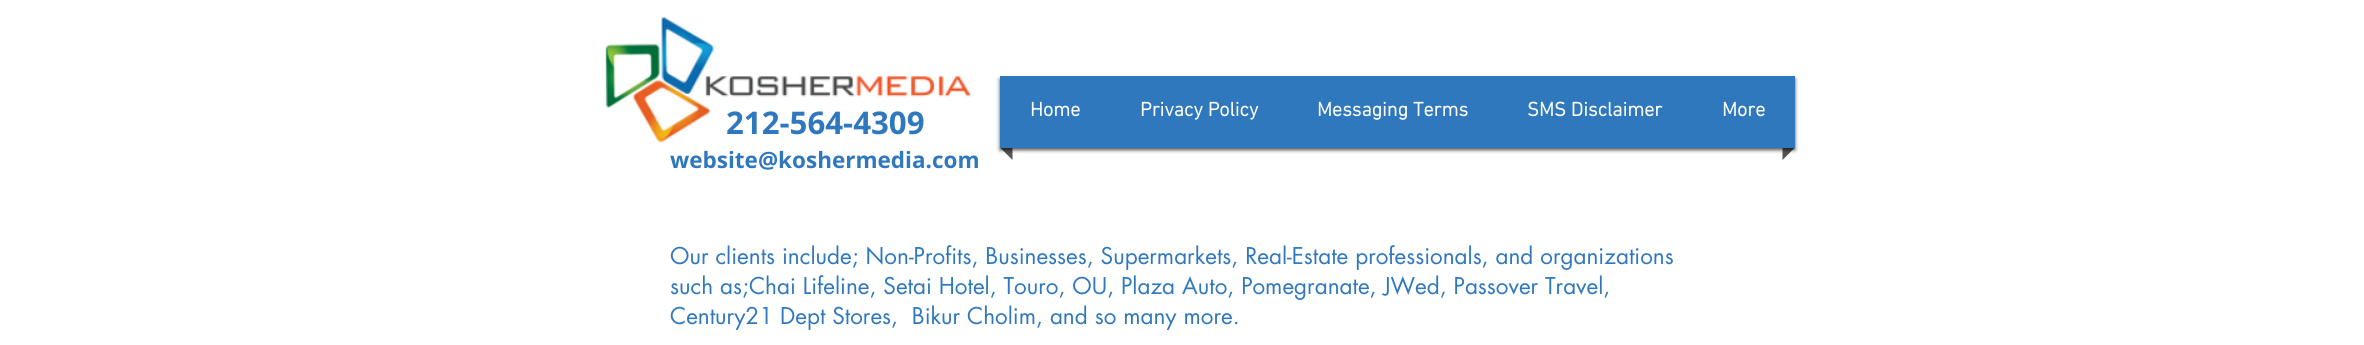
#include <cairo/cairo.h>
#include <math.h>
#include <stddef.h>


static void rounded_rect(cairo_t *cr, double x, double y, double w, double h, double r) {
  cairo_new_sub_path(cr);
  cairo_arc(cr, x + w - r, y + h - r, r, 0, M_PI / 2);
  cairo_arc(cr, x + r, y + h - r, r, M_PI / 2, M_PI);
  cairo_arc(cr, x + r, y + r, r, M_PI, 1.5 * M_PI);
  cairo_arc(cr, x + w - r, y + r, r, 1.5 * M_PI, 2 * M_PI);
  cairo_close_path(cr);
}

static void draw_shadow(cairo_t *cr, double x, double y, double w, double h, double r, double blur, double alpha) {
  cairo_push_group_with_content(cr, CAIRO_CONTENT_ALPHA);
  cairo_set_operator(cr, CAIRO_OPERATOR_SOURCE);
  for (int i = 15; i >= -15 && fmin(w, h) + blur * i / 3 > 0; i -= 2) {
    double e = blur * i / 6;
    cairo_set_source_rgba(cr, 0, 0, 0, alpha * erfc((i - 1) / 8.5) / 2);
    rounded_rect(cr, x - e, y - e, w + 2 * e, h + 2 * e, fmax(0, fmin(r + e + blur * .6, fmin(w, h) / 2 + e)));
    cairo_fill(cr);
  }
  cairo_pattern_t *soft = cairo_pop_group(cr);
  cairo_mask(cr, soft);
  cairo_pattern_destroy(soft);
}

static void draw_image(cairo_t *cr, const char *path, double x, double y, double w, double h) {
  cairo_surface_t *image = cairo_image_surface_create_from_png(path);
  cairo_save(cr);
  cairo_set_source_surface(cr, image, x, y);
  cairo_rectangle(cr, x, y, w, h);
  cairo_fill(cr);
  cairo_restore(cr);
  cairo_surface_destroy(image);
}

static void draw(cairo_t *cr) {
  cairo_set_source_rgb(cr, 1, 1, 1);
  cairo_paint(cr);
  draw_image(cr, "images/1.png", 605, 17, 367, 126);
  cairo_set_source_rgb(cr, 88 / 255.0, 85 / 255.0, 81 / 255.0);
  cairo_new_path(cr);
  cairo_move_to(cr, 1000, 147.5);
  cairo_line_to(cr, 1012.5, 147.5);
  cairo_line_to(cr, 1012.5, 160);
  cairo_close_path(cr);
  cairo_fill(cr);
  cairo_new_path(cr);
  cairo_move_to(cr, 1782.5, 147.5);
  cairo_line_to(cr, 1795, 147.5);
  cairo_line_to(cr, 1782.5, 160);
  cairo_close_path(cr);
  cairo_fill(cr);
  cairo_set_source_rgb(cr, 0, 0, 0);
  draw_shadow(cr, 1000, 79, 795, 71, 0, 2, 0.7);
  cairo_set_source_rgb(cr, 48 / 255.0, 120 / 255.0, 190 / 255.0);
  cairo_rectangle(cr, 1000, 76, 795, 72);
  cairo_fill(cr);
  cairo_select_font_face(cr, "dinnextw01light", CAIRO_FONT_SLANT_NORMAL, CAIRO_FONT_WEIGHT_BOLD);
  cairo_set_font_size(cr, 20);
  cairo_set_source_rgb(cr, 1, 1, 1);
  cairo_move_to(cr, 1030, 116);
  cairo_show_text(cr, "Home");
  cairo_move_to(cr, 1140, 116);
  cairo_show_text(cr, "Privacy Policy");
  cairo_move_to(cr, 1317, 116);
  cairo_show_text(cr, "Messaging Terms");
  cairo_move_to(cr, 1527, 116);
  cairo_show_text(cr, "SMS Disclaimer");
  cairo_move_to(cr, 1722, 116);
  cairo_show_text(cr, "More");
  cairo_select_font_face(cr, "Open Sans", CAIRO_FONT_SLANT_NORMAL, CAIRO_FONT_WEIGHT_BOLD);
  cairo_set_font_size(cr, 31.25);
  cairo_set_source_rgb(cr, 48 / 255.0, 120 / 255.0, 190 / 255.0);
  cairo_move_to(cr, 726, 134);
  cairo_show_text(cr, "212-564-4309");
  cairo_set_font_size(cr, 22.5);
  cairo_move_to(cr, 670, 168);
  cairo_show_text(cr, "website@koshermedia.com");
  cairo_select_font_face(cr, "futura", CAIRO_FONT_SLANT_NORMAL, CAIRO_FONT_WEIGHT_NORMAL);
  cairo_move_to(cr, 670, 264);
  cairo_show_text(cr, "Our clients include; Non-Profits, Businesses, Supermarkets, Real-Estate professionals, and organizations");
  cairo_move_to(cr, 670, 294);
  cairo_show_text(cr, "such as;Chai Lifeline, Setai Hotel, Touro, OU, Plaza Auto, Pomegranate, JWed, Passover Travel,");
  cairo_move_to(cr, 670, 324);
  cairo_show_text(cr, "Century21 Dept Stores,  Bikur Cholim, and so many more.");
}

int main(void) {
  cairo_surface_t *surface = cairo_image_surface_create(CAIRO_FORMAT_RGB24, 2364, 345);
  cairo_t *cr = cairo_create(surface);
  cairo_font_options_t *options = cairo_font_options_create();
  cairo_font_options_set_hint_metrics(options, CAIRO_HINT_METRICS_OFF);
  cairo_font_options_set_hint_style(options, CAIRO_HINT_STYLE_NONE);
  cairo_set_font_options(cr, options);
  cairo_set_miter_limit(cr, 4);
  draw(cr);
  cairo_surface_write_to_png(surface, "out.png");
  cairo_font_options_destroy(options);
  cairo_destroy(cr);
  cairo_surface_destroy(surface);
  return 0;
}
